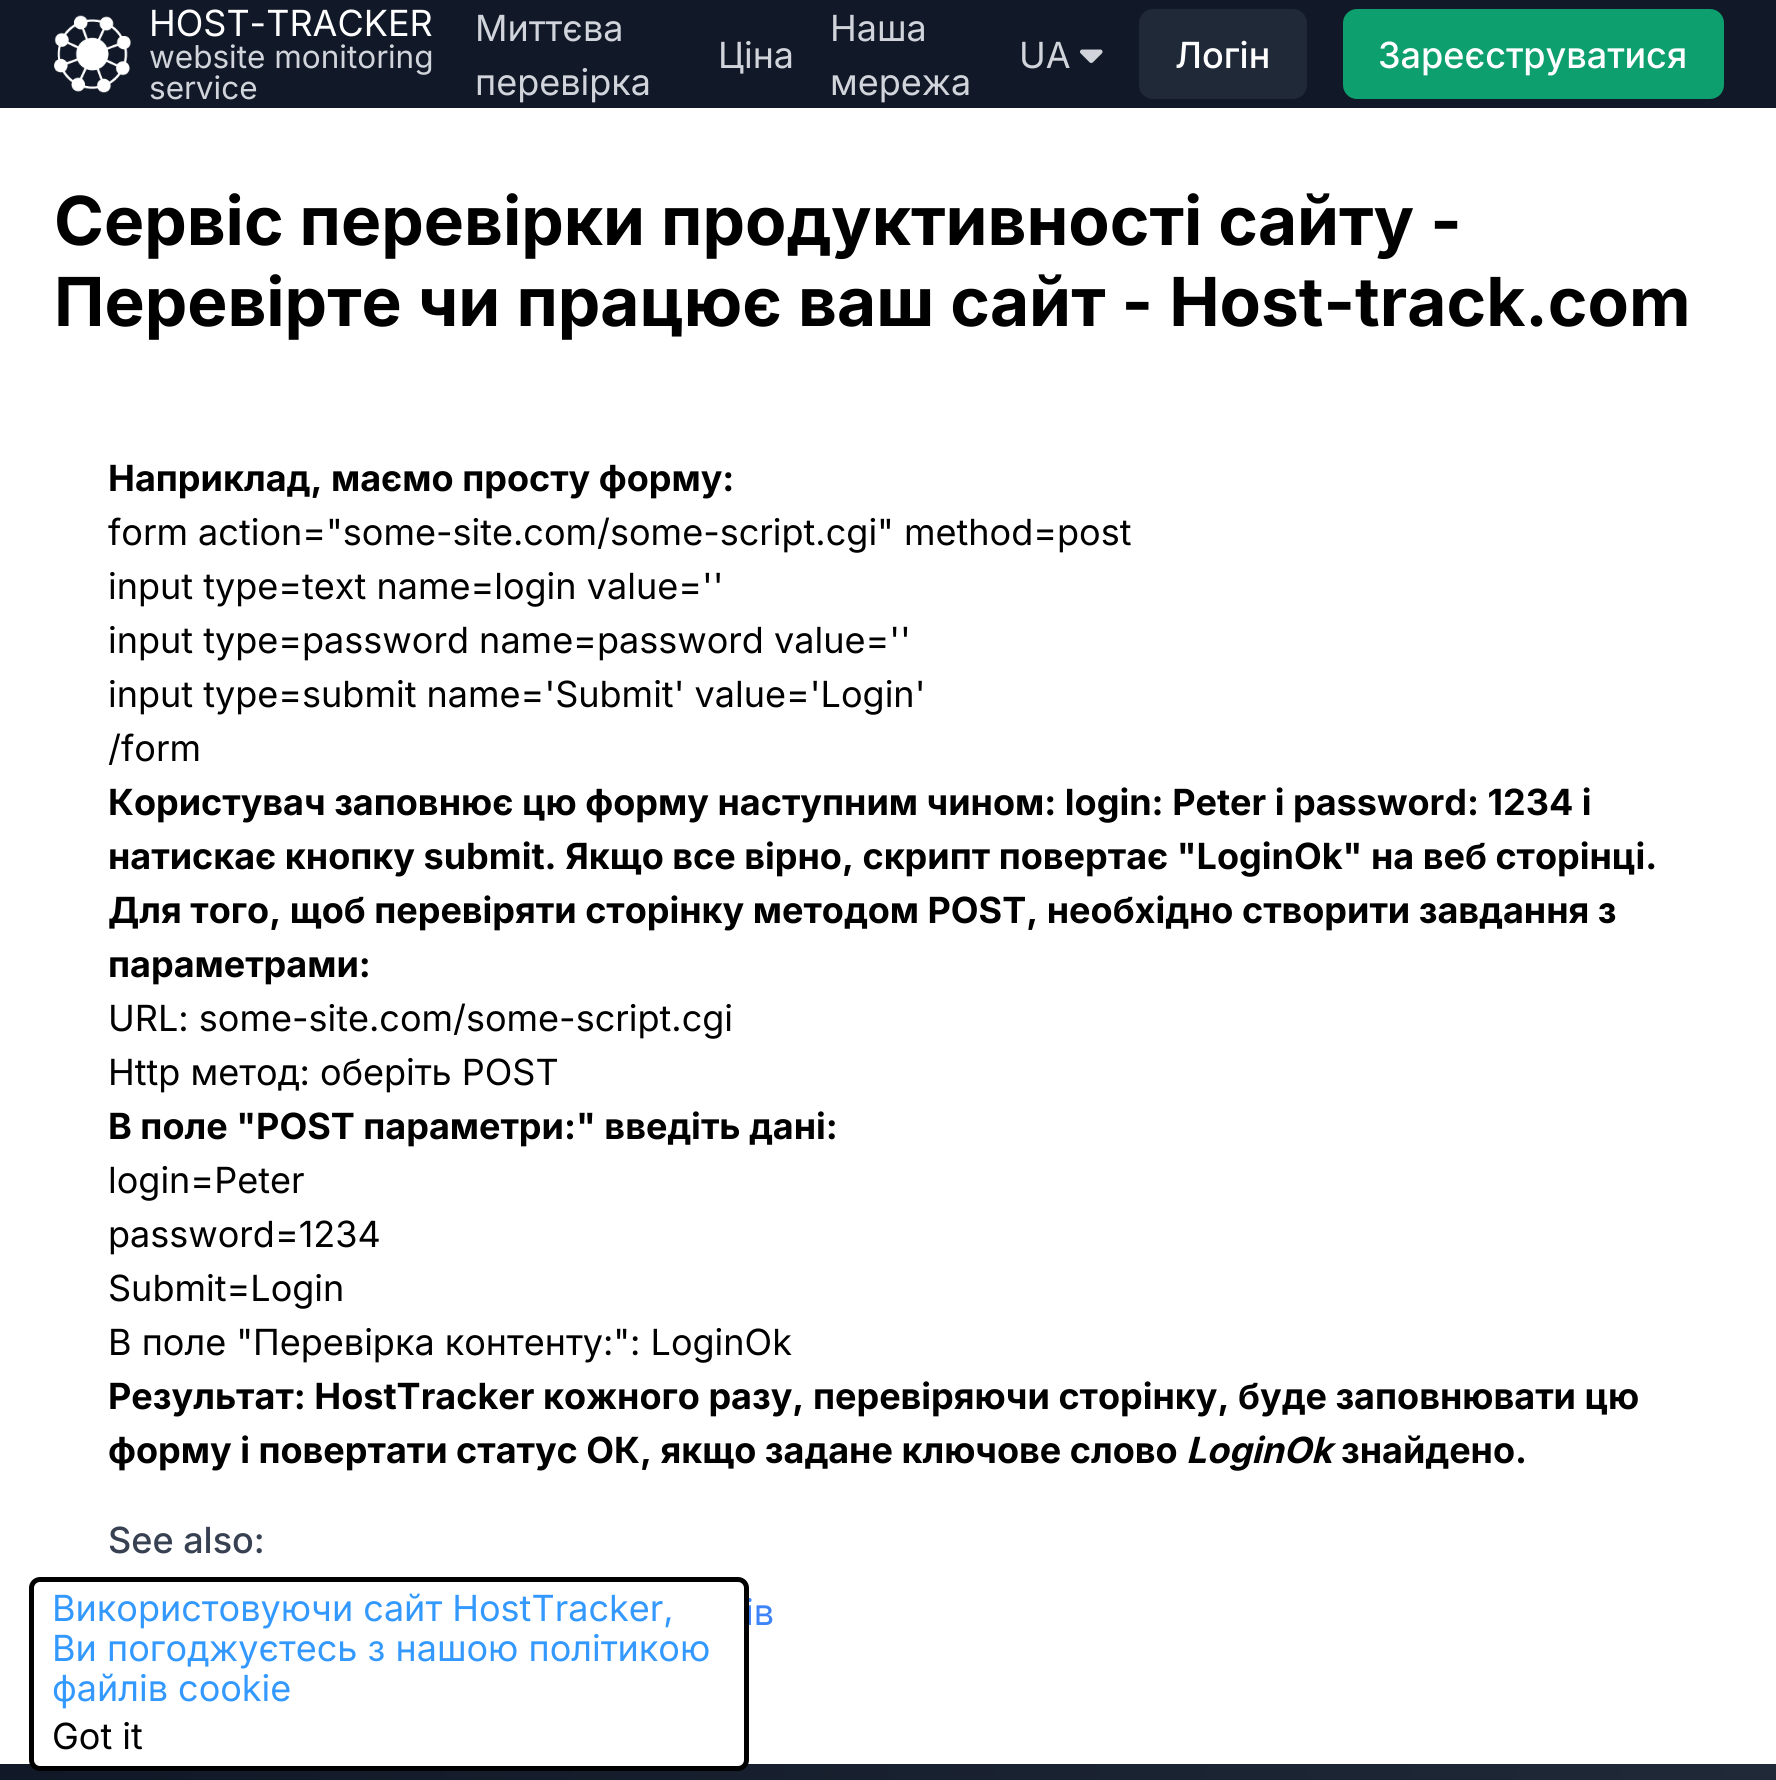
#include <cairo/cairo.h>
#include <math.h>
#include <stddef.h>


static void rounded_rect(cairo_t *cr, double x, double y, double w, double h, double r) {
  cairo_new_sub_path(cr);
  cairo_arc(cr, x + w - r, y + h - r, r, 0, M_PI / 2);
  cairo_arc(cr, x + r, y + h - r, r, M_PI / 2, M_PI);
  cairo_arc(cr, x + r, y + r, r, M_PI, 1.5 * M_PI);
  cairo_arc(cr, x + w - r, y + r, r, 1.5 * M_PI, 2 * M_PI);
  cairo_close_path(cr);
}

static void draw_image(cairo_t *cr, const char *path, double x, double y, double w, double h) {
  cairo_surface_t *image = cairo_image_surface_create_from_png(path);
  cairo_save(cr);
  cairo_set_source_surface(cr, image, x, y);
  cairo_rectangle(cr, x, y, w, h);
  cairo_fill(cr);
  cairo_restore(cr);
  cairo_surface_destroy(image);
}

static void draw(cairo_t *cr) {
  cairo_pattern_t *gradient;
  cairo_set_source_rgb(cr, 1, 1, 1);
  cairo_paint(cr);
  cairo_set_source_rgb(cr, 17 / 255.0, 24 / 255.0, 39 / 255.0);
  cairo_rectangle(cr, 0, 0, 1776, 108);
  cairo_fill(cr);
  draw_image(cr, "images/1.png", 54, 15, 77, 78);
  draw_image(cr, "images/2.png", 1080, 49, 23, 14);
  cairo_set_source_rgb(cr, 31 / 255.0, 41 / 255.0, 55 / 255.0);
  rounded_rect(cr, 1139, 9, 168, 90, 14);
  cairo_fill(cr);
  cairo_set_source_rgb(cr, 14 / 255.0, 159 / 255.0, 110 / 255.0);
  rounded_rect(cr, 1343, 9, 381, 90, 14);
  cairo_fill(cr);
  gradient = cairo_pattern_create_linear(0, 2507, 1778, 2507);
  cairo_pattern_add_color_stop_rgba(gradient, 0, 17 / 255.0, 24 / 255.0, 39 / 255.0, 1);
  cairo_pattern_add_color_stop_rgba(gradient, 1, 31 / 255.0, 41 / 255.0, 55 / 255.0, 1);
  cairo_set_source(cr, gradient);
  cairo_pattern_destroy(gradient);
  cairo_rectangle(cr, 0, 1764, 1776, 16);
  cairo_fill(cr);
  cairo_select_font_face(cr, "Inter", CAIRO_FONT_SLANT_NORMAL, CAIRO_FONT_WEIGHT_NORMAL);
  cairo_set_font_size(cr, 36);
  cairo_set_source_rgb(cr, 1, 1, 1);
  cairo_move_to(cr, 149, 36);
  cairo_show_text(cr, "HOST-TRACKER");
  cairo_set_font_size(cr, 31.5);
  cairo_set_source_rgb(cr, 209 / 255.0, 213 / 255.0, 219 / 255.0);
  cairo_move_to(cr, 149, 68);
  cairo_show_text(cr, "website monitoring");
  cairo_move_to(cr, 149, 99);
  cairo_show_text(cr, "service");
  cairo_set_font_size(cr, 36);
  cairo_move_to(cr, 475, 41);
  cairo_show_text(cr, "Миттєва");
  cairo_move_to(cr, 475, 95);
  cairo_show_text(cr, "перевірка");
  cairo_move_to(cr, 718, 68);
  cairo_show_text(cr, "Ціна");
  cairo_move_to(cr, 830, 41);
  cairo_show_text(cr, "Наша");
  cairo_move_to(cr, 830, 95);
  cairo_show_text(cr, "мережа");
  cairo_move_to(cr, 1019, 68);
  cairo_show_text(cr, "UA");
  cairo_select_font_face(cr, "Inter Medium", CAIRO_FONT_SLANT_NORMAL, CAIRO_FONT_WEIGHT_NORMAL);
  cairo_set_source_rgb(cr, 1, 1, 1);
  cairo_move_to(cr, 1175, 68);
  cairo_show_text(cr, "Логін");
  cairo_move_to(cr, 1378, 68);
  cairo_show_text(cr, "Зареєструватися");
  cairo_select_font_face(cr, "Inter", CAIRO_FONT_SLANT_NORMAL, CAIRO_FONT_WEIGHT_BOLD);
  cairo_set_font_size(cr, 67.5);
  cairo_set_source_rgb(cr, 0, 0, 0);
  cairo_move_to(cr, 54, 245);
  cairo_show_text(cr, "Сервіс перевірки продуктивності сайту -");
  cairo_move_to(cr, 54, 326);
  cairo_show_text(cr, "Перевірте чи працює ваш сайт - Host-track.com");
  cairo_set_font_size(cr, 36);
  cairo_move_to(cr, 108, 491);
  cairo_show_text(cr, "Наприклад, маємо просту форму:");
  cairo_select_font_face(cr, "Inter", CAIRO_FONT_SLANT_NORMAL, CAIRO_FONT_WEIGHT_NORMAL);
  cairo_move_to(cr, 108, 545);
  cairo_show_text(cr, "form action=\"some-site.com/some-script.cgi\" method=post");
  cairo_move_to(cr, 108, 599);
  cairo_show_text(cr, "input type=text name=login value=''");
  cairo_move_to(cr, 108, 653);
  cairo_show_text(cr, "input type=password name=password value=''");
  cairo_move_to(cr, 108, 707);
  cairo_show_text(cr, "input type=submit name='Submit' value='Login'");
  cairo_move_to(cr, 108, 761);
  cairo_show_text(cr, "/form");
  cairo_select_font_face(cr, "Inter", CAIRO_FONT_SLANT_NORMAL, CAIRO_FONT_WEIGHT_BOLD);
  cairo_move_to(cr, 108, 815);
  cairo_show_text(cr, "Користувач заповнює цю форму наступним чином: login: Peter і password: 1234 і");
  cairo_move_to(cr, 108, 869);
  cairo_show_text(cr, "натискає кнопку submit. Якщо все вірно, скрипт повертає \"LoginOk\" на веб сторінці.");
  cairo_move_to(cr, 108, 923);
  cairo_show_text(cr, "Для того, щоб перевіряти сторінку методом POST, необхідно створити завдання з");
  cairo_move_to(cr, 108, 977);
  cairo_show_text(cr, "параметрами:");
  cairo_select_font_face(cr, "Inter", CAIRO_FONT_SLANT_NORMAL, CAIRO_FONT_WEIGHT_NORMAL);
  cairo_move_to(cr, 108, 1031);
  cairo_show_text(cr, "URL: some-site.com/some-script.cgi");
  cairo_move_to(cr, 108, 1085);
  cairo_show_text(cr, "Http метод: оберіть POST");
  cairo_select_font_face(cr, "Inter", CAIRO_FONT_SLANT_NORMAL, CAIRO_FONT_WEIGHT_BOLD);
  cairo_move_to(cr, 108, 1139);
  cairo_show_text(cr, "В поле \"POST параметри:\" введіть дані:");
  cairo_select_font_face(cr, "Inter", CAIRO_FONT_SLANT_NORMAL, CAIRO_FONT_WEIGHT_NORMAL);
  cairo_move_to(cr, 108, 1193);
  cairo_show_text(cr, "login=Peter");
  cairo_move_to(cr, 108, 1247);
  cairo_show_text(cr, "password=1234");
  cairo_move_to(cr, 108, 1301);
  cairo_show_text(cr, "Submit=Login");
  cairo_move_to(cr, 108, 1355);
  cairo_show_text(cr, "В поле \"Перевірка контенту:\": LoginOk");
  cairo_select_font_face(cr, "Inter", CAIRO_FONT_SLANT_NORMAL, CAIRO_FONT_WEIGHT_BOLD);
  cairo_move_to(cr, 108, 1409);
  cairo_show_text(cr, "Результат: HostTracker кожного разу, перевіряючи сторінку, буде заповнювати цю");
  cairo_move_to(cr, 108, 1463);
  cairo_show_text(cr, "форму і повертати статус ОК, якщо задане ключове слово");
  cairo_select_font_face(cr, "Inter", CAIRO_FONT_SLANT_ITALIC, CAIRO_FONT_WEIGHT_BOLD);
  cairo_move_to(cr, 1186, 1463);
  cairo_show_text(cr, "LoginOk");
  cairo_select_font_face(cr, "Inter", CAIRO_FONT_SLANT_NORMAL, CAIRO_FONT_WEIGHT_BOLD);
  cairo_move_to(cr, 1341, 1463);
  cairo_show_text(cr, "знайдено.");
  cairo_select_font_face(cr, "Inter Medium", CAIRO_FONT_SLANT_NORMAL, CAIRO_FONT_WEIGHT_NORMAL);
  cairo_set_source_rgb(cr, 55 / 255.0, 65 / 255.0, 81 / 255.0);
  cairo_move_to(cr, 108, 1553);
  cairo_show_text(cr, "See also:");
  cairo_select_font_face(cr, "Inter", CAIRO_FONT_SLANT_NORMAL, CAIRO_FONT_WEIGHT_NORMAL);
  cairo_set_source_rgb(cr, 63 / 255.0, 131 / 255.0, 248 / 255.0);
  cairo_move_to(cr, 745, 1625);
  cairo_show_text(cr, "ів");
  cairo_set_source_rgb(cr, 1, 1, 1);
  rounded_rect(cr, 31.5, 1579.5, 715, 189, 8.5);
  cairo_fill_preserve(cr);
  cairo_set_source_rgb(cr, 0, 0, 0);
  cairo_set_line_width(cr, 5);
  cairo_stroke(cr);
  cairo_set_source_rgb(cr, 51 / 255.0, 153 / 255.0, 1);
  cairo_move_to(cr, 52, 1621);
  cairo_show_text(cr, "Використовуючи сайт HostTracker,");
  cairo_move_to(cr, 52, 1661);
  cairo_show_text(cr, "Ви погоджуєтесь з нашою політикою");
  cairo_move_to(cr, 52, 1701);
  cairo_show_text(cr, "файлів cookie");
  cairo_set_source_rgb(cr, 0, 0, 0);
  cairo_move_to(cr, 52, 1749);
  cairo_show_text(cr, "Got it");
}

int main(void) {
  cairo_surface_t *surface = cairo_image_surface_create(CAIRO_FORMAT_RGB24, 1776, 1780);
  cairo_t *cr = cairo_create(surface);
  cairo_font_options_t *options = cairo_font_options_create();
  cairo_font_options_set_hint_metrics(options, CAIRO_HINT_METRICS_OFF);
  cairo_font_options_set_hint_style(options, CAIRO_HINT_STYLE_NONE);
  cairo_set_font_options(cr, options);
  cairo_set_miter_limit(cr, 4);
  draw(cr);
  cairo_surface_write_to_png(surface, "out.png");
  cairo_font_options_destroy(options);
  cairo_destroy(cr);
  cairo_surface_destroy(surface);
  return 0;
}
